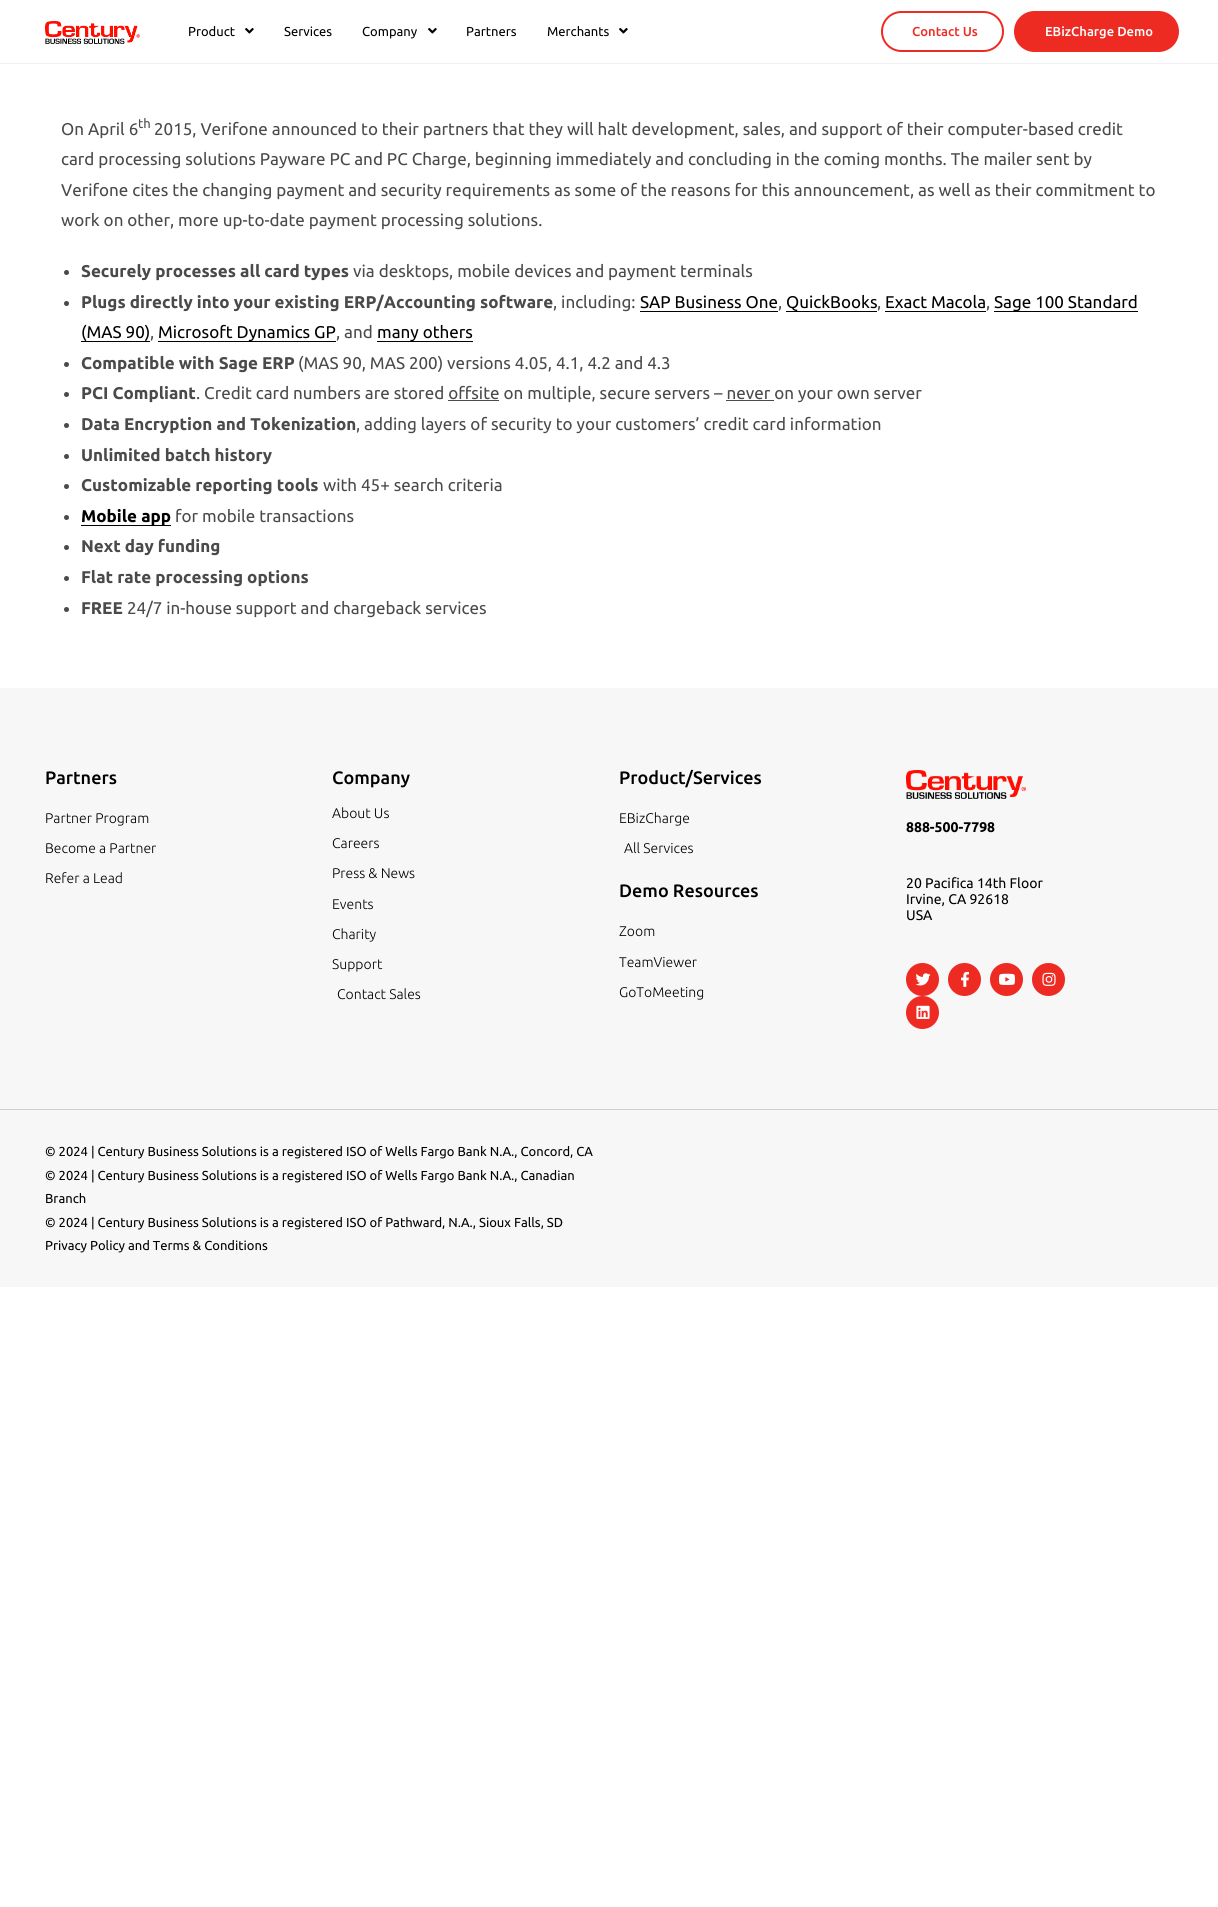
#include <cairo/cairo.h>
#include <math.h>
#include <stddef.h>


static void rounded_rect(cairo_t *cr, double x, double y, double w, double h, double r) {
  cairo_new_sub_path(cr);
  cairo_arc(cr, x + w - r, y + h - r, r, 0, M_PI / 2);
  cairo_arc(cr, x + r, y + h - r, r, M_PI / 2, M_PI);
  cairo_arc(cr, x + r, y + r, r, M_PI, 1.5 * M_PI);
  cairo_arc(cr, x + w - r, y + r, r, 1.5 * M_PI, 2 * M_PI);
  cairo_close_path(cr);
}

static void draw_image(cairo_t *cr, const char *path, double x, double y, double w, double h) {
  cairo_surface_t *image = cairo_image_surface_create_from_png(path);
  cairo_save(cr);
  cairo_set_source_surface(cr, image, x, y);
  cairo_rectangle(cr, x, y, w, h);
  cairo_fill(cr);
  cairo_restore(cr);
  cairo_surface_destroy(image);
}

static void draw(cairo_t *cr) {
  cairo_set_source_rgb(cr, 1, 1, 1);
  cairo_paint(cr);
  cairo_set_source_rgb(cr, 240 / 255.0, 240 / 255.0, 240 / 255.0);
  cairo_rectangle(cr, 0, 63, 1218, 1);
  cairo_fill(cr);
  draw_image(cr, "images/1.png", 45, 21, 95, 23);
  draw_image(cr, "images/2.png", 245, 28, 9, 6);
  draw_image(cr, "images/2.png", 428, 28, 9, 6);
  draw_image(cr, "images/2.png", 619, 28, 9, 6);
  rounded_rect(cr, 882, 12, 121, 39, 19.5);
  cairo_set_source_rgb(cr, 238 / 255.0, 43 / 255.0, 35 / 255.0);
  cairo_stroke(cr);
  rounded_rect(cr, 1015, 12, 163, 39, 19.5);
  cairo_fill_preserve(cr);
  cairo_stroke(cr);
  cairo_set_source_rgb(cr, 74 / 255.0, 74 / 255.0, 74 / 255.0);
  cairo_arc(cr, 66.5, 272.5, 2.5, 0, 2 * M_PI);
  cairo_fill(cr);
  cairo_arc(cr, 66.5, 303.5, 2.5, 0, 2 * M_PI);
  cairo_fill(cr);
  cairo_set_source_rgb(cr, 0, 0, 0);
  cairo_rectangle(cr, 640, 311, 138, 1);
  cairo_fill(cr);
  cairo_rectangle(cr, 786, 311, 91, 1);
  cairo_fill(cr);
  cairo_rectangle(cr, 885, 311, 101, 1);
  cairo_fill(cr);
  cairo_rectangle(cr, 994, 311, 144, 1);
  cairo_fill(cr);
  cairo_rectangle(cr, 81, 341, 69, 1);
  cairo_fill(cr);
  cairo_rectangle(cr, 158, 341, 178, 1);
  cairo_fill(cr);
  cairo_rectangle(cr, 377, 341, 96, 1);
  cairo_fill(cr);
  cairo_set_source_rgb(cr, 74 / 255.0, 74 / 255.0, 74 / 255.0);
  cairo_arc(cr, 66.5, 364.5, 2.5, 0, 2 * M_PI);
  cairo_fill(cr);
  cairo_arc(cr, 66.5, 394.5, 2.5, 0, 2 * M_PI);
  cairo_fill(cr);
  cairo_rectangle(cr, 448, 400, 51, 1);
  cairo_fill(cr);
  cairo_rectangle(cr, 726, 400, 48, 1);
  cairo_fill(cr);
  cairo_arc(cr, 66.5, 425.5, 2.5, 0, 2 * M_PI);
  cairo_fill(cr);
  cairo_arc(cr, 66.5, 456.5, 2.5, 0, 2 * M_PI);
  cairo_fill(cr);
  cairo_arc(cr, 66.5, 486.5, 2.5, 0, 2 * M_PI);
  cairo_fill(cr);
  cairo_arc(cr, 66.5, 517.5, 2.5, 0, 2 * M_PI);
  cairo_fill(cr);
  cairo_set_source_rgb(cr, 0, 0, 0);
  cairo_rectangle(cr, 81, 525, 90, 1);
  cairo_fill(cr);
  cairo_set_source_rgb(cr, 74 / 255.0, 74 / 255.0, 74 / 255.0);
  cairo_arc(cr, 66.5, 547.5, 2.5, 0, 2 * M_PI);
  cairo_fill(cr);
  cairo_arc(cr, 66.5, 578.5, 2.5, 0, 2 * M_PI);
  cairo_fill(cr);
  cairo_arc(cr, 66.5, 609.5, 2.5, 0, 2 * M_PI);
  cairo_fill(cr);
  cairo_set_source_rgb(cr, 247 / 255.0, 247 / 255.0, 247 / 255.0);
  cairo_rectangle(cr, 0, 688, 1218, 421);
  cairo_fill(cr);
  draw_image(cr, "images/3.png", 906, 770, 120, 29);
  cairo_set_source_rgb(cr, 238 / 255.0, 43 / 255.0, 35 / 255.0);
  cairo_arc(cr, 922.5, 979.5, 16.5, 0, 2 * M_PI);
  cairo_fill(cr);
  draw_image(cr, "images/4.png", 915, 973, 16, 13);
  cairo_arc(cr, 964.5, 979.5, 16.5, 0, 2 * M_PI);
  cairo_fill(cr);
  draw_image(cr, "images/5.png", 961, 971, 8, 16);
  cairo_arc(cr, 1006.5, 979.5, 16.5, 0, 2 * M_PI);
  cairo_fill(cr);
  draw_image(cr, "images/6.png", 999, 973, 16, 12);
  cairo_arc(cr, 1048.5, 979.5, 16.5, 0, 2 * M_PI);
  cairo_fill(cr);
  draw_image(cr, "images/7.png", 1042, 972, 14, 14);
  cairo_arc(cr, 922.5, 1012.5, 16.5, 0, 2 * M_PI);
  cairo_fill(cr);
  draw_image(cr, "images/8.png", 916, 1005, 14, 14);
  cairo_set_source_rgb(cr, 247 / 255.0, 247 / 255.0, 247 / 255.0);
  cairo_rectangle(cr, 0, 1110, 1218, 177);
  cairo_fill(cr);
  cairo_set_source_rgb(cr, 208 / 255.0, 208 / 255.0, 208 / 255.0);
  cairo_rectangle(cr, 0, 1109, 1218, 1);
  cairo_fill(cr);
  cairo_select_font_face(cr, "Ubuntu", CAIRO_FONT_SLANT_NORMAL, CAIRO_FONT_WEIGHT_NORMAL);
  cairo_set_font_size(cr, 13);
  cairo_set_source_rgb(cr, 0, 0, 0);
  cairo_move_to(cr, 188, 36);
  cairo_show_text(cr, "Product");
  cairo_move_to(cr, 284, 36);
  cairo_show_text(cr, "Services");
  cairo_move_to(cr, 362, 36);
  cairo_show_text(cr, "Company");
  cairo_move_to(cr, 466, 36);
  cairo_show_text(cr, "Partners");
  cairo_move_to(cr, 547, 36);
  cairo_show_text(cr, "Merchants");
  cairo_select_font_face(cr, "Ubuntu Medium", CAIRO_FONT_SLANT_NORMAL, CAIRO_FONT_WEIGHT_NORMAL);
  cairo_set_source_rgb(cr, 238 / 255.0, 43 / 255.0, 35 / 255.0);
  cairo_move_to(cr, 912, 36);
  cairo_show_text(cr, "Contact Us");
  cairo_set_source_rgb(cr, 1, 1, 1);
  cairo_move_to(cr, 1045, 36);
  cairo_show_text(cr, "EBizCharge Demo");
  cairo_select_font_face(cr, "Ubuntu", CAIRO_FONT_SLANT_NORMAL, CAIRO_FONT_WEIGHT_NORMAL);
  cairo_set_font_size(cr, 17);
  cairo_set_source_rgb(cr, 74 / 255.0, 74 / 255.0, 74 / 255.0);
  cairo_move_to(cr, 61, 135);
  cairo_show_text(cr, "On April 6");
  cairo_set_font_size(cr, 13);
  cairo_move_to(cr, 138, 128);
  cairo_show_text(cr, "th");
  cairo_set_font_size(cr, 17);
  cairo_move_to(cr, 154, 135);
  cairo_show_text(cr, "2015, Verifone announced to their partners that they will halt development, sales, and support of their computer-based credit");
  cairo_move_to(cr, 61, 165);
  cairo_show_text(cr, "card processing solutions Payware PC and PC Charge, beginning immediately and concluding in the coming months. The mailer sent by");
  cairo_move_to(cr, 61, 196);
  cairo_show_text(cr, "Verifone cites the changing payment and security requirements as some of the reasons for this announcement, as well as their commitment to");
  cairo_move_to(cr, 61, 226);
  cairo_show_text(cr, "work on other, more up-to-date payment processing solutions.");
  cairo_select_font_face(cr, "Ubuntu", CAIRO_FONT_SLANT_NORMAL, CAIRO_FONT_WEIGHT_BOLD);
  cairo_move_to(cr, 81, 277);
  cairo_show_text(cr, "Securely processes all card types");
  cairo_select_font_face(cr, "Ubuntu", CAIRO_FONT_SLANT_NORMAL, CAIRO_FONT_WEIGHT_NORMAL);
  cairo_move_to(cr, 353, 277);
  cairo_show_text(cr, "via desktops, mobile devices and payment terminals");
  cairo_select_font_face(cr, "Ubuntu", CAIRO_FONT_SLANT_NORMAL, CAIRO_FONT_WEIGHT_BOLD);
  cairo_move_to(cr, 81, 308);
  cairo_show_text(cr, "Plugs directly into your existing ERP/Accounting software");
  cairo_select_font_face(cr, "Ubuntu", CAIRO_FONT_SLANT_NORMAL, CAIRO_FONT_WEIGHT_NORMAL);
  cairo_move_to(cr, 553, 308);
  cairo_show_text(cr, ", including:");
  cairo_set_source_rgb(cr, 0, 0, 0);
  cairo_move_to(cr, 640, 308);
  cairo_show_text(cr, "SAP Business One");
  cairo_move_to(cr, 786, 308);
  cairo_show_text(cr, "QuickBooks");
  cairo_move_to(cr, 885, 308);
  cairo_show_text(cr, "Exact Macola");
  cairo_move_to(cr, 994, 308);
  cairo_show_text(cr, "Sage 100 Standard");
  cairo_set_source_rgb(cr, 74 / 255.0, 74 / 255.0, 74 / 255.0);
  cairo_move_to(cr, 778, 308);
  cairo_show_text(cr, ",");
  cairo_move_to(cr, 877, 308);
  cairo_show_text(cr, ",");
  cairo_move_to(cr, 986, 308);
  cairo_show_text(cr, ",");
  cairo_set_source_rgb(cr, 0, 0, 0);
  cairo_move_to(cr, 81, 338);
  cairo_show_text(cr, "(MAS 90)");
  cairo_set_source_rgb(cr, 74 / 255.0, 74 / 255.0, 74 / 255.0);
  cairo_move_to(cr, 150, 338);
  cairo_show_text(cr, ",");
  cairo_set_source_rgb(cr, 0, 0, 0);
  cairo_move_to(cr, 158, 338);
  cairo_show_text(cr, "Microsoft Dynamics GP");
  cairo_set_source_rgb(cr, 74 / 255.0, 74 / 255.0, 74 / 255.0);
  cairo_move_to(cr, 336, 338);
  cairo_show_text(cr, ", and");
  cairo_set_source_rgb(cr, 0, 0, 0);
  cairo_move_to(cr, 377, 338);
  cairo_show_text(cr, "many others");
  cairo_select_font_face(cr, "Ubuntu", CAIRO_FONT_SLANT_NORMAL, CAIRO_FONT_WEIGHT_BOLD);
  cairo_set_source_rgb(cr, 74 / 255.0, 74 / 255.0, 74 / 255.0);
  cairo_move_to(cr, 81, 369);
  cairo_show_text(cr, "Compatible with Sage ERP");
  cairo_select_font_face(cr, "Ubuntu", CAIRO_FONT_SLANT_NORMAL, CAIRO_FONT_WEIGHT_NORMAL);
  cairo_move_to(cr, 298, 369);
  cairo_show_text(cr, "(MAS 90, MAS 200) versions 4.05, 4.1, 4.2 and 4.3");
  cairo_select_font_face(cr, "Ubuntu", CAIRO_FONT_SLANT_NORMAL, CAIRO_FONT_WEIGHT_BOLD);
  cairo_move_to(cr, 81, 399);
  cairo_show_text(cr, "PCI Compliant");
  cairo_select_font_face(cr, "Ubuntu", CAIRO_FONT_SLANT_NORMAL, CAIRO_FONT_WEIGHT_NORMAL);
  cairo_move_to(cr, 196, 399);
  cairo_show_text(cr, ". Credit card numbers are stored offsite on multiple, secure servers – never on your own server");
  cairo_select_font_face(cr, "Ubuntu", CAIRO_FONT_SLANT_NORMAL, CAIRO_FONT_WEIGHT_BOLD);
  cairo_move_to(cr, 81, 430);
  cairo_show_text(cr, "Data Encryption and Tokenization");
  cairo_select_font_face(cr, "Ubuntu", CAIRO_FONT_SLANT_NORMAL, CAIRO_FONT_WEIGHT_NORMAL);
  cairo_move_to(cr, 356, 430);
  cairo_show_text(cr, ", adding layers of security to your customers’ credit card information");
  cairo_select_font_face(cr, "Ubuntu", CAIRO_FONT_SLANT_NORMAL, CAIRO_FONT_WEIGHT_BOLD);
  cairo_move_to(cr, 81, 461);
  cairo_show_text(cr, "Unlimited batch history");
  cairo_move_to(cr, 81, 491);
  cairo_show_text(cr, "Customizable reporting tools");
  cairo_select_font_face(cr, "Ubuntu", CAIRO_FONT_SLANT_NORMAL, CAIRO_FONT_WEIGHT_NORMAL);
  cairo_move_to(cr, 323, 491);
  cairo_show_text(cr, "with 45+ search criteria");
  cairo_select_font_face(cr, "Ubuntu", CAIRO_FONT_SLANT_NORMAL, CAIRO_FONT_WEIGHT_BOLD);
  cairo_set_source_rgb(cr, 0, 0, 0);
  cairo_move_to(cr, 81, 522);
  cairo_show_text(cr, "Mobile app");
  cairo_select_font_face(cr, "Ubuntu", CAIRO_FONT_SLANT_NORMAL, CAIRO_FONT_WEIGHT_NORMAL);
  cairo_set_source_rgb(cr, 74 / 255.0, 74 / 255.0, 74 / 255.0);
  cairo_move_to(cr, 175, 522);
  cairo_show_text(cr, "for mobile transactions");
  cairo_select_font_face(cr, "Ubuntu", CAIRO_FONT_SLANT_NORMAL, CAIRO_FONT_WEIGHT_BOLD);
  cairo_move_to(cr, 81, 552);
  cairo_show_text(cr, "Next day funding");
  cairo_move_to(cr, 81, 583);
  cairo_show_text(cr, "Flat rate processing options");
  cairo_move_to(cr, 81, 614);
  cairo_show_text(cr, "FREE");
  cairo_select_font_face(cr, "Ubuntu", CAIRO_FONT_SLANT_NORMAL, CAIRO_FONT_WEIGHT_NORMAL);
  cairo_move_to(cr, 127, 614);
  cairo_show_text(cr, "24/7 in-house support and chargeback services");
  cairo_select_font_face(cr, "Ubuntu Medium", CAIRO_FONT_SLANT_NORMAL, CAIRO_FONT_WEIGHT_NORMAL);
  cairo_set_font_size(cr, 18);
  cairo_set_source_rgb(cr, 0, 0, 0);
  cairo_move_to(cr, 45, 784);
  cairo_show_text(cr, "Partners");
  cairo_select_font_face(cr, "Ubuntu Light", CAIRO_FONT_SLANT_NORMAL, CAIRO_FONT_WEIGHT_NORMAL);
  cairo_set_font_size(cr, 14);
  cairo_move_to(cr, 45, 823);
  cairo_show_text(cr, "Partner Program");
  cairo_move_to(cr, 45, 853);
  cairo_show_text(cr, "Become a Partner");
  cairo_move_to(cr, 45, 883);
  cairo_show_text(cr, "Refer a Lead");
  cairo_select_font_face(cr, "Ubuntu Medium", CAIRO_FONT_SLANT_NORMAL, CAIRO_FONT_WEIGHT_NORMAL);
  cairo_set_font_size(cr, 18);
  cairo_move_to(cr, 332, 784);
  cairo_show_text(cr, "Company");
  cairo_select_font_face(cr, "Ubuntu Light", CAIRO_FONT_SLANT_NORMAL, CAIRO_FONT_WEIGHT_NORMAL);
  cairo_set_font_size(cr, 14);
  cairo_move_to(cr, 332, 818);
  cairo_show_text(cr, "About Us");
  cairo_move_to(cr, 332, 848);
  cairo_show_text(cr, "Careers");
  cairo_move_to(cr, 332, 878);
  cairo_show_text(cr, "Press & News");
  cairo_move_to(cr, 332, 909);
  cairo_show_text(cr, "Events");
  cairo_move_to(cr, 332, 939);
  cairo_show_text(cr, "Charity");
  cairo_move_to(cr, 332, 969);
  cairo_show_text(cr, "Support");
  cairo_move_to(cr, 337, 999);
  cairo_show_text(cr, "Contact Sales");
  cairo_select_font_face(cr, "Ubuntu Medium", CAIRO_FONT_SLANT_NORMAL, CAIRO_FONT_WEIGHT_NORMAL);
  cairo_set_font_size(cr, 18);
  cairo_move_to(cr, 619, 784);
  cairo_show_text(cr, "Product/Services");
  cairo_select_font_face(cr, "Ubuntu Light", CAIRO_FONT_SLANT_NORMAL, CAIRO_FONT_WEIGHT_NORMAL);
  cairo_set_font_size(cr, 14);
  cairo_move_to(cr, 619, 823);
  cairo_show_text(cr, "EBizCharge");
  cairo_move_to(cr, 624, 853);
  cairo_show_text(cr, "All Services");
  cairo_select_font_face(cr, "Ubuntu Medium", CAIRO_FONT_SLANT_NORMAL, CAIRO_FONT_WEIGHT_NORMAL);
  cairo_set_font_size(cr, 18);
  cairo_move_to(cr, 619, 897);
  cairo_show_text(cr, "Demo Resources");
  cairo_select_font_face(cr, "Ubuntu Light", CAIRO_FONT_SLANT_NORMAL, CAIRO_FONT_WEIGHT_NORMAL);
  cairo_set_font_size(cr, 14);
  cairo_move_to(cr, 619, 936);
  cairo_show_text(cr, "Zoom");
  cairo_move_to(cr, 619, 967);
  cairo_show_text(cr, "TeamViewer");
  cairo_move_to(cr, 619, 997);
  cairo_show_text(cr, "GoToMeeting");
  cairo_select_font_face(cr, "Ubuntu", CAIRO_FONT_SLANT_NORMAL, CAIRO_FONT_WEIGHT_BOLD);
  cairo_move_to(cr, 906, 832);
  cairo_show_text(cr, "888-500-7798");
  cairo_select_font_face(cr, "Ubuntu", CAIRO_FONT_SLANT_NORMAL, CAIRO_FONT_WEIGHT_NORMAL);
  cairo_move_to(cr, 906, 888);
  cairo_show_text(cr, "20 Pacifica 14th Floor");
  cairo_move_to(cr, 906, 904);
  cairo_show_text(cr, "Irvine, CA 92618");
  cairo_move_to(cr, 906, 920);
  cairo_show_text(cr, "USA");
  cairo_set_font_size(cr, 13);
  cairo_move_to(cr, 45, 1156);
  cairo_show_text(cr, "© 2024 | Century Business Solutions is a registered ISO of Wells Fargo Bank N.A., Concord, CA");
  cairo_move_to(cr, 45, 1180);
  cairo_show_text(cr, "© 2024 | Century Business Solutions is a registered ISO of Wells Fargo Bank N.A., Canadian");
  cairo_move_to(cr, 45, 1203);
  cairo_show_text(cr, "Branch");
  cairo_move_to(cr, 45, 1227);
  cairo_show_text(cr, "© 2024 | Century Business Solutions is a registered ISO of Pathward, N.A., Sioux Falls, SD");
  cairo_move_to(cr, 45, 1250);
  cairo_show_text(cr, "Privacy Policy and Terms & Conditions");
}

int main(void) {
  cairo_surface_t *surface = cairo_image_surface_create(CAIRO_FORMAT_RGB24, 1218, 1907);
  cairo_t *cr = cairo_create(surface);
  cairo_font_options_t *options = cairo_font_options_create();
  cairo_font_options_set_hint_metrics(options, CAIRO_HINT_METRICS_OFF);
  cairo_font_options_set_hint_style(options, CAIRO_HINT_STYLE_NONE);
  cairo_set_font_options(cr, options);
  cairo_set_miter_limit(cr, 4);
  draw(cr);
  cairo_surface_write_to_png(surface, "out.png");
  cairo_font_options_destroy(options);
  cairo_destroy(cr);
  cairo_surface_destroy(surface);
  return 0;
}
